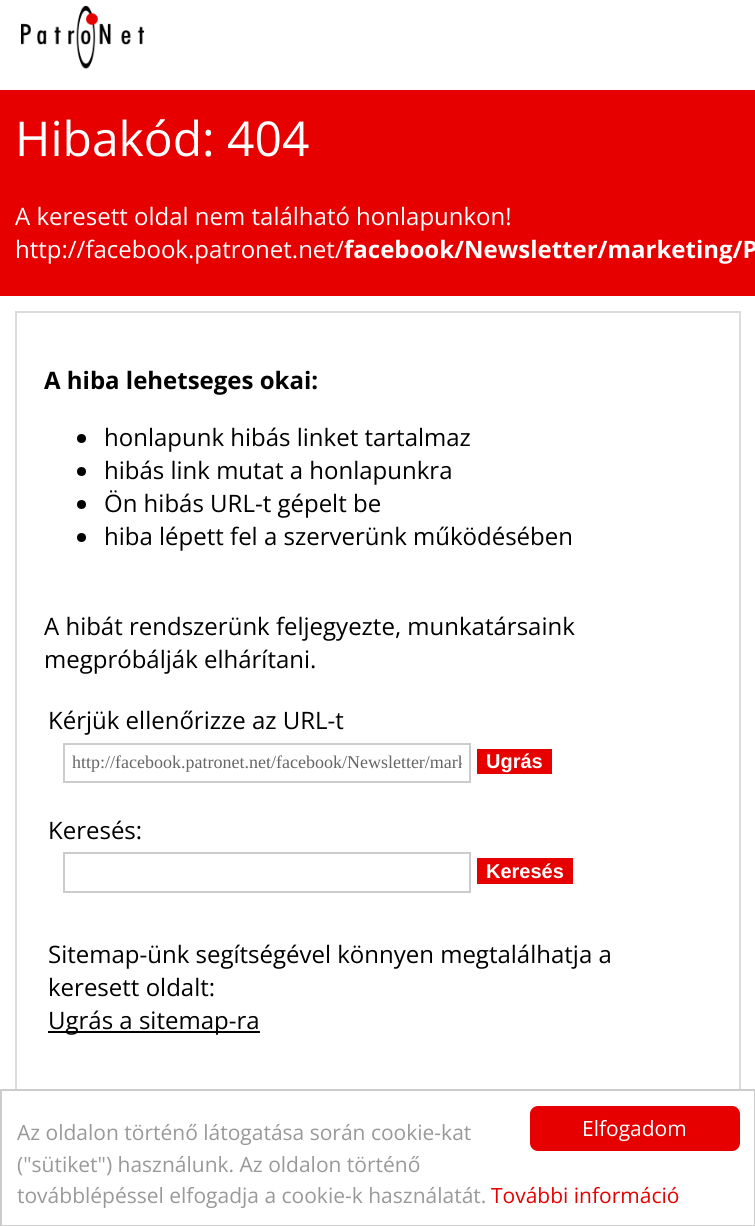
#include <cairo/cairo.h>
#include <math.h>
#include <stddef.h>


static void rounded_rect(cairo_t *cr, double x, double y, double w, double h, double r) {
  cairo_new_sub_path(cr);
  cairo_arc(cr, x + w - r, y + h - r, r, 0, M_PI / 2);
  cairo_arc(cr, x + r, y + h - r, r, M_PI / 2, M_PI);
  cairo_arc(cr, x + r, y + r, r, M_PI, 1.5 * M_PI);
  cairo_arc(cr, x + w - r, y + r, r, 1.5 * M_PI, 2 * M_PI);
  cairo_close_path(cr);
}

static void draw_image(cairo_t *cr, const char *path, double x, double y, double w, double h) {
  cairo_surface_t *image = cairo_image_surface_create_from_png(path);
  cairo_save(cr);
  cairo_set_source_surface(cr, image, x, y);
  cairo_rectangle(cr, x, y, w, h);
  cairo_fill(cr);
  cairo_restore(cr);
  cairo_surface_destroy(image);
}

static void draw(cairo_t *cr) {
  cairo_set_source_rgb(cr, 1, 1, 1);
  cairo_paint(cr);
  draw_image(cr, "images/1.png", 21, 5, 124, 64);
  cairo_set_source_rgb(cr, 230 / 255.0, 0, 0);
  cairo_rectangle(cr, 0, 90, 755, 206);
  cairo_fill(cr);
  cairo_rectangle(cr, 16, 312, 724, 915);
  cairo_set_source_rgb(cr, 220 / 255.0, 220 / 255.0, 220 / 255.0);
  cairo_stroke(cr);
  cairo_set_source_rgb(cr, 0, 0, 0);
  cairo_arc(cr, 81.5, 438.5, 4.5, 0, 2 * M_PI);
  cairo_fill(cr);
  cairo_arc(cr, 81.5, 471.5, 4.5, 0, 2 * M_PI);
  cairo_fill(cr);
  cairo_arc(cr, 81.5, 504.5, 4.5, 0, 2 * M_PI);
  cairo_fill(cr);
  cairo_arc(cr, 81.5, 537.5, 4.5, 0, 2 * M_PI);
  cairo_fill(cr);
  cairo_rectangle(cr, 64, 744, 406, 38);
  cairo_set_source_rgb(cr, 204 / 255.0, 204 / 255.0, 204 / 255.0);
  cairo_stroke(cr);
  cairo_set_source_rgb(cr, 230 / 255.0, 0, 0);
  cairo_rectangle(cr, 477, 749, 75, 25);
  cairo_fill(cr);
  cairo_rectangle(cr, 64, 853, 406, 39);
  cairo_set_source_rgb(cr, 204 / 255.0, 204 / 255.0, 204 / 255.0);
  cairo_stroke(cr);
  cairo_set_source_rgb(cr, 230 / 255.0, 0, 0);
  cairo_rectangle(cr, 477, 858, 96, 26);
  cairo_fill(cr);
  cairo_set_source_rgb(cr, 0, 0, 0);
  cairo_rectangle(cr, 48, 1031, 212, 2);
  cairo_fill(cr);
  cairo_set_source_rgb(cr, 1, 1, 1);
  cairo_rectangle(cr, 15, 1091, 726, 134);
  cairo_fill(cr);
  cairo_rectangle(cr, 1, 1090, 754, 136);
  cairo_set_source_rgb(cr, 204 / 255.0, 204 / 255.0, 204 / 255.0);
  cairo_stroke(cr);
  cairo_set_source_rgb(cr, 230 / 255.0, 0, 0);
  rounded_rect(cr, 530, 1106, 210, 45, 8);
  cairo_fill(cr);
  cairo_select_font_face(cr, "Open Sans", CAIRO_FONT_SLANT_NORMAL, CAIRO_FONT_WEIGHT_NORMAL);
  cairo_set_font_size(cr, 48);
  cairo_set_source_rgb(cr, 1, 1, 1);
  cairo_move_to(cr, 15, 156);
  cairo_show_text(cr, "Hibakód: 404");
  cairo_set_font_size(cr, 24);
  cairo_move_to(cr, 15, 225);
  cairo_show_text(cr, "A keresett oldal nem található honlapunkon!");
  cairo_move_to(cr, 15, 258);
  cairo_show_text(cr, "http://facebook.patronet.net/");
  cairo_select_font_face(cr, "Open Sans", CAIRO_FONT_SLANT_NORMAL, CAIRO_FONT_WEIGHT_BOLD);
  cairo_move_to(cr, 344, 258);
  cairo_show_text(cr, "facebook/Newsletter/marketing/P");
  cairo_set_source_rgb(cr, 0, 0, 0);
  cairo_move_to(cr, 44, 389);
  cairo_show_text(cr, "A hiba lehetseges okai:");
  cairo_select_font_face(cr, "Open Sans", CAIRO_FONT_SLANT_NORMAL, CAIRO_FONT_WEIGHT_NORMAL);
  cairo_move_to(cr, 104, 446);
  cairo_show_text(cr, "honlapunk hibás linket tartalmaz");
  cairo_move_to(cr, 104, 479);
  cairo_show_text(cr, "hibás link mutat a honlapunkra");
  cairo_move_to(cr, 104, 512);
  cairo_show_text(cr, "Ön hibás URL-t gépelt be");
  cairo_move_to(cr, 104, 545);
  cairo_show_text(cr, "hiba lépett fel a szerverünk működésében");
  cairo_move_to(cr, 44, 635);
  cairo_show_text(cr, "A hibát rendszerünk feljegyezte, munkatársaink");
  cairo_move_to(cr, 44, 668);
  cairo_show_text(cr, "megpróbálják elhárítani.");
  cairo_move_to(cr, 48, 729);
  cairo_show_text(cr, "Kérjük ellenőrizze az URL-t");
  cairo_save(cr);
  cairo_rectangle(cr, 72, 752, 390, 22);
  cairo_clip(cr);
  cairo_select_font_face(cr, "Liberation Serif", CAIRO_FONT_SLANT_NORMAL, CAIRO_FONT_WEIGHT_NORMAL);
  cairo_set_font_size(cr, 18);
  cairo_set_source_rgb(cr, 102 / 255.0, 102 / 255.0, 102 / 255.0);
  cairo_move_to(cr, 72, 768);
  cairo_show_text(cr, "http://facebook.patronet.net/facebook/Newsletter/mark");
  cairo_restore(cr);
  cairo_select_font_face(cr, "Liberation Sans", CAIRO_FONT_SLANT_NORMAL, CAIRO_FONT_WEIGHT_BOLD);
  cairo_set_font_size(cr, 20);
  cairo_set_source_rgb(cr, 1, 1, 1);
  cairo_move_to(cr, 486, 768);
  cairo_show_text(cr, "Ugrás");
  cairo_select_font_face(cr, "Open Sans", CAIRO_FONT_SLANT_NORMAL, CAIRO_FONT_WEIGHT_NORMAL);
  cairo_set_font_size(cr, 24);
  cairo_set_source_rgb(cr, 0, 0, 0);
  cairo_move_to(cr, 48, 839);
  cairo_show_text(cr, "Keresés:");
  cairo_select_font_face(cr, "Liberation Sans", CAIRO_FONT_SLANT_NORMAL, CAIRO_FONT_WEIGHT_BOLD);
  cairo_set_font_size(cr, 20);
  cairo_set_source_rgb(cr, 1, 1, 1);
  cairo_move_to(cr, 486, 878);
  cairo_show_text(cr, "Keresés");
  cairo_select_font_face(cr, "Open Sans", CAIRO_FONT_SLANT_NORMAL, CAIRO_FONT_WEIGHT_NORMAL);
  cairo_set_font_size(cr, 24);
  cairo_set_source_rgb(cr, 0, 0, 0);
  cairo_move_to(cr, 48, 963);
  cairo_show_text(cr, "Sitemap-ünk segítségével könnyen megtalálhatja a");
  cairo_move_to(cr, 48, 996);
  cairo_show_text(cr, "keresett oldalt:");
  cairo_move_to(cr, 48, 1029);
  cairo_show_text(cr, "Ugrás a sitemap-ra");
  cairo_set_font_size(cr, 21);
  cairo_set_source_rgb(cr, 1, 1, 1);
  cairo_move_to(cr, 582, 1136);
  cairo_show_text(cr, "Elfogadom");
  cairo_set_source_rgb(cr, 153 / 255.0, 153 / 255.0, 153 / 255.0);
  cairo_move_to(cr, 17, 1140);
  cairo_show_text(cr, "Az oldalon történő látogatása során cookie-kat");
  cairo_move_to(cr, 17, 1172);
  cairo_show_text(cr, "(\"sütiket\") használunk. Az oldalon történő");
  cairo_move_to(cr, 17, 1203);
  cairo_show_text(cr, "továbblépéssel elfogadja a cookie-k használatát.");
  cairo_set_source_rgb(cr, 230 / 255.0, 0, 0);
  cairo_move_to(cr, 491, 1203);
  cairo_show_text(cr, "További információ");
}

int main(void) {
  cairo_surface_t *surface = cairo_image_surface_create(CAIRO_FORMAT_RGB24, 755, 1226);
  cairo_t *cr = cairo_create(surface);
  cairo_font_options_t *options = cairo_font_options_create();
  cairo_font_options_set_hint_metrics(options, CAIRO_HINT_METRICS_OFF);
  cairo_font_options_set_hint_style(options, CAIRO_HINT_STYLE_NONE);
  cairo_set_font_options(cr, options);
  cairo_set_miter_limit(cr, 4);
  draw(cr);
  cairo_surface_write_to_png(surface, "out.png");
  cairo_font_options_destroy(options);
  cairo_destroy(cr);
  cairo_surface_destroy(surface);
  return 0;
}
